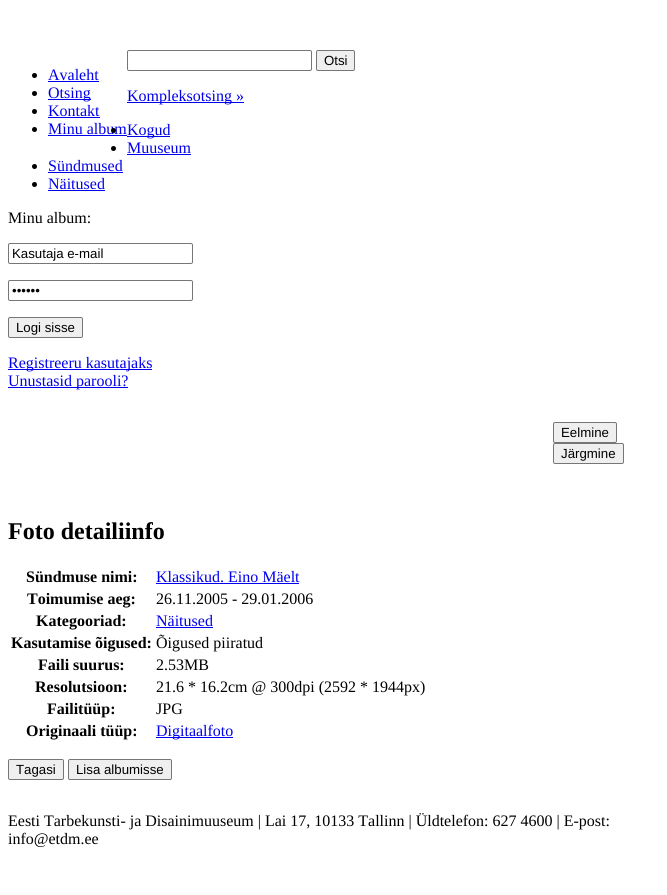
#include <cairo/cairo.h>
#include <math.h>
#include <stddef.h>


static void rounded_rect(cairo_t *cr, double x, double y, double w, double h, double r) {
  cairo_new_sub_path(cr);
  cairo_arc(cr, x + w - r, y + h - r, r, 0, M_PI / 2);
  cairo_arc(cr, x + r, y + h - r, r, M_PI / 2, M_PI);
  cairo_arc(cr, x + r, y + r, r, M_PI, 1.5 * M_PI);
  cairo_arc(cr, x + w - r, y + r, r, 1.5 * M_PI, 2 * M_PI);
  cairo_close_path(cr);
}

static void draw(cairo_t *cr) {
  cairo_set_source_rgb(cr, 1, 1, 1);
  cairo_paint(cr);
  cairo_set_source_rgb(cr, 0, 0, 0);
  cairo_arc(cr, 34.5, 75.5, 2.5, 0, 2 * M_PI);
  cairo_fill(cr);
  cairo_set_source_rgb(cr, 0, 0, 238 / 255.0);
  cairo_rectangle(cr, 48, 81, 51, 1);
  cairo_fill(cr);
  cairo_set_source_rgb(cr, 0, 0, 0);
  cairo_arc(cr, 34.5, 93.5, 2.5, 0, 2 * M_PI);
  cairo_fill(cr);
  cairo_set_source_rgb(cr, 0, 0, 238 / 255.0);
  cairo_rectangle(cr, 48, 99, 43, 1);
  cairo_fill(cr);
  cairo_set_source_rgb(cr, 0, 0, 0);
  cairo_arc(cr, 34.5, 111.5, 2.5, 0, 2 * M_PI);
  cairo_fill(cr);
  cairo_set_source_rgb(cr, 0, 0, 238 / 255.0);
  cairo_rectangle(cr, 48, 117, 52, 1);
  cairo_fill(cr);
  cairo_set_source_rgb(cr, 0, 0, 0);
  cairo_arc(cr, 34.5, 129.5, 2.5, 0, 2 * M_PI);
  cairo_fill(cr);
  cairo_set_source_rgb(cr, 0, 0, 238 / 255.0);
  cairo_rectangle(cr, 48, 135, 79, 1);
  cairo_fill(cr);
  rounded_rect(cr, 127.5, 50.5, 184, 20, 1.5);
  cairo_set_source_rgb(cr, 118 / 255.0, 118 / 255.0, 118 / 255.0);
  cairo_set_line_width(cr, 1);
  cairo_stroke(cr);
  cairo_set_source_rgb(cr, 239 / 255.0, 239 / 255.0, 239 / 255.0);
  rounded_rect(cr, 316.5, 50.5, 38, 20, 1.5);
  cairo_fill_preserve(cr);
  cairo_set_source_rgb(cr, 118 / 255.0, 118 / 255.0, 118 / 255.0);
  cairo_stroke(cr);
  cairo_set_source_rgb(cr, 0, 0, 238 / 255.0);
  cairo_rectangle(cr, 127, 102, 117, 1);
  cairo_fill(cr);
  cairo_rectangle(cr, 127, 136, 43, 1);
  cairo_fill(cr);
  cairo_set_source_rgb(cr, 0, 0, 0);
  cairo_arc(cr, 113.5, 148.5, 2.5, 0, 2 * M_PI);
  cairo_fill(cr);
  cairo_set_source_rgb(cr, 0, 0, 238 / 255.0);
  cairo_rectangle(cr, 127, 154, 64, 1);
  cairo_fill(cr);
  cairo_set_source_rgb(cr, 0, 0, 0);
  cairo_arc(cr, 34.5, 166.5, 2.5, 0, 2 * M_PI);
  cairo_fill(cr);
  cairo_set_source_rgb(cr, 0, 0, 238 / 255.0);
  cairo_rectangle(cr, 48, 172, 75, 1);
  cairo_fill(cr);
  cairo_set_source_rgb(cr, 0, 0, 0);
  cairo_arc(cr, 34.5, 184.5, 2.5, 0, 2 * M_PI);
  cairo_fill(cr);
  cairo_set_source_rgb(cr, 0, 0, 238 / 255.0);
  cairo_rectangle(cr, 48, 190, 57, 1);
  cairo_fill(cr);
  rounded_rect(cr, 8.5, 243.5, 184, 20, 1.5);
  cairo_set_source_rgb(cr, 118 / 255.0, 118 / 255.0, 118 / 255.0);
  cairo_stroke(cr);
  rounded_rect(cr, 8.5, 280.5, 184, 20, 1.5);
  cairo_stroke(cr);
  cairo_set_source_rgb(cr, 239 / 255.0, 239 / 255.0, 239 / 255.0);
  rounded_rect(cr, 8.5, 317.5, 74, 20, 1.5);
  cairo_fill_preserve(cr);
  cairo_set_source_rgb(cr, 118 / 255.0, 118 / 255.0, 118 / 255.0);
  cairo_stroke(cr);
  cairo_set_source_rgb(cr, 0, 0, 238 / 255.0);
  cairo_rectangle(cr, 8, 369, 144, 1);
  cairo_fill(cr);
  cairo_rectangle(cr, 8, 387, 120, 1);
  cairo_fill(cr);
  cairo_set_source_rgb(cr, 239 / 255.0, 239 / 255.0, 239 / 255.0);
  rounded_rect(cr, 553.5, 422.5, 63, 20, 1.5);
  cairo_fill_preserve(cr);
  cairo_set_source_rgb(cr, 118 / 255.0, 118 / 255.0, 118 / 255.0);
  cairo_stroke(cr);
  cairo_set_source_rgb(cr, 239 / 255.0, 239 / 255.0, 239 / 255.0);
  rounded_rect(cr, 553.5, 443.5, 70, 20, 1.5);
  cairo_fill_preserve(cr);
  cairo_set_source_rgb(cr, 118 / 255.0, 118 / 255.0, 118 / 255.0);
  cairo_stroke(cr);
  cairo_set_source_rgb(cr, 0, 0, 238 / 255.0);
  cairo_rectangle(cr, 156, 583, 143, 1);
  cairo_fill(cr);
  cairo_rectangle(cr, 156, 627, 57, 1);
  cairo_fill(cr);
  cairo_rectangle(cr, 156, 737, 77, 1);
  cairo_fill(cr);
  cairo_set_source_rgb(cr, 239 / 255.0, 239 / 255.0, 239 / 255.0);
  rounded_rect(cr, 8.5, 759.5, 55, 20, 1.5);
  cairo_fill_preserve(cr);
  cairo_set_source_rgb(cr, 118 / 255.0, 118 / 255.0, 118 / 255.0);
  cairo_stroke(cr);
  cairo_set_source_rgb(cr, 239 / 255.0, 239 / 255.0, 239 / 255.0);
  rounded_rect(cr, 68.5, 759.5, 103, 20, 1.5);
  cairo_fill_preserve(cr);
  cairo_set_source_rgb(cr, 118 / 255.0, 118 / 255.0, 118 / 255.0);
  cairo_stroke(cr);
  cairo_select_font_face(cr, "Liberation Serif", CAIRO_FONT_SLANT_NORMAL, CAIRO_FONT_WEIGHT_NORMAL);
  cairo_set_font_size(cr, 16);
  cairo_set_source_rgb(cr, 0, 0, 238 / 255.0);
  cairo_move_to(cr, 48, 80);
  cairo_show_text(cr, "Avaleht");
  cairo_move_to(cr, 48, 98);
  cairo_show_text(cr, "Otsing");
  cairo_move_to(cr, 48, 116);
  cairo_show_text(cr, "Kontakt");
  cairo_move_to(cr, 48, 134);
  cairo_show_text(cr, "Minu album");
  cairo_select_font_face(cr, "Liberation Sans", CAIRO_FONT_SLANT_NORMAL, CAIRO_FONT_WEIGHT_NORMAL);
  cairo_set_font_size(cr, 13.25);
  cairo_set_source_rgb(cr, 0, 0, 0);
  cairo_move_to(cr, 324, 65);
  cairo_show_text(cr, "Otsi");
  cairo_select_font_face(cr, "Liberation Serif", CAIRO_FONT_SLANT_NORMAL, CAIRO_FONT_WEIGHT_NORMAL);
  cairo_set_font_size(cr, 16);
  cairo_set_source_rgb(cr, 0, 0, 238 / 255.0);
  cairo_move_to(cr, 127, 101);
  cairo_show_text(cr, "Kompleksotsing »");
  cairo_set_source_rgb(cr, 0, 0, 0);
  cairo_new_path(cr);
  cairo_arc(cr, 113.5, 130.5, 2.5, 0, 2 * M_PI);
  cairo_fill(cr);
  cairo_set_source_rgb(cr, 0, 0, 238 / 255.0);
  cairo_move_to(cr, 127, 135);
  cairo_show_text(cr, "Kogud");
  cairo_move_to(cr, 127, 153);
  cairo_show_text(cr, "Muuseum");
  cairo_move_to(cr, 48, 171);
  cairo_show_text(cr, "Sündmused");
  cairo_move_to(cr, 48, 189);
  cairo_show_text(cr, "Näitused");
  cairo_set_source_rgb(cr, 0, 0, 0);
  cairo_move_to(cr, 8, 223);
  cairo_show_text(cr, "Minu album:");
  cairo_select_font_face(cr, "Liberation Sans", CAIRO_FONT_SLANT_NORMAL, CAIRO_FONT_WEIGHT_NORMAL);
  cairo_set_font_size(cr, 13.25);
  cairo_move_to(cr, 12, 258);
  cairo_show_text(cr, "Kasutaja e-mail");
  cairo_move_to(cr, 12, 295);
  cairo_show_text(cr, "••••••");
  cairo_move_to(cr, 16, 332);
  cairo_show_text(cr, "Logi sisse");
  cairo_select_font_face(cr, "Liberation Serif", CAIRO_FONT_SLANT_NORMAL, CAIRO_FONT_WEIGHT_NORMAL);
  cairo_set_font_size(cr, 16);
  cairo_set_source_rgb(cr, 0, 0, 238 / 255.0);
  cairo_move_to(cr, 8, 368);
  cairo_show_text(cr, "Registreeru kasutajaks");
  cairo_move_to(cr, 8, 386);
  cairo_show_text(cr, "Unustasid parooli?");
  cairo_select_font_face(cr, "Liberation Sans", CAIRO_FONT_SLANT_NORMAL, CAIRO_FONT_WEIGHT_NORMAL);
  cairo_set_font_size(cr, 13.25);
  cairo_set_source_rgb(cr, 0, 0, 0);
  cairo_move_to(cr, 561, 437);
  cairo_show_text(cr, "Eelmine");
  cairo_move_to(cr, 561, 458);
  cairo_show_text(cr, "Järgmine");
  cairo_select_font_face(cr, "Liberation Serif", CAIRO_FONT_SLANT_NORMAL, CAIRO_FONT_WEIGHT_BOLD);
  cairo_set_font_size(cr, 24);
  cairo_move_to(cr, 8, 539);
  cairo_show_text(cr, "Foto detailiinfo");
  cairo_set_font_size(cr, 16);
  cairo_move_to(cr, 26, 582);
  cairo_show_text(cr, "Sündmuse nimi:");
  cairo_select_font_face(cr, "Liberation Serif", CAIRO_FONT_SLANT_NORMAL, CAIRO_FONT_WEIGHT_NORMAL);
  cairo_set_source_rgb(cr, 0, 0, 238 / 255.0);
  cairo_move_to(cr, 156, 582);
  cairo_show_text(cr, "Klassikud. Eino Mäelt");
  cairo_select_font_face(cr, "Liberation Serif", CAIRO_FONT_SLANT_NORMAL, CAIRO_FONT_WEIGHT_BOLD);
  cairo_set_source_rgb(cr, 0, 0, 0);
  cairo_move_to(cr, 27, 604);
  cairo_show_text(cr, "Toimumise aeg:");
  cairo_select_font_face(cr, "Liberation Serif", CAIRO_FONT_SLANT_NORMAL, CAIRO_FONT_WEIGHT_NORMAL);
  cairo_move_to(cr, 156, 604);
  cairo_show_text(cr, "26.11.2005 - 29.01.2006");
  cairo_select_font_face(cr, "Liberation Serif", CAIRO_FONT_SLANT_NORMAL, CAIRO_FONT_WEIGHT_BOLD);
  cairo_move_to(cr, 36, 626);
  cairo_show_text(cr, "Kategooriad:");
  cairo_select_font_face(cr, "Liberation Serif", CAIRO_FONT_SLANT_NORMAL, CAIRO_FONT_WEIGHT_NORMAL);
  cairo_set_source_rgb(cr, 0, 0, 238 / 255.0);
  cairo_move_to(cr, 156, 626);
  cairo_show_text(cr, "Näitused");
  cairo_select_font_face(cr, "Liberation Serif", CAIRO_FONT_SLANT_NORMAL, CAIRO_FONT_WEIGHT_BOLD);
  cairo_set_source_rgb(cr, 0, 0, 0);
  cairo_move_to(cr, 11, 648);
  cairo_show_text(cr, "Kasutamise õigused:");
  cairo_select_font_face(cr, "Liberation Serif", CAIRO_FONT_SLANT_NORMAL, CAIRO_FONT_WEIGHT_NORMAL);
  cairo_move_to(cr, 156, 648);
  cairo_show_text(cr, "Õigused piiratud");
  cairo_select_font_face(cr, "Liberation Serif", CAIRO_FONT_SLANT_NORMAL, CAIRO_FONT_WEIGHT_BOLD);
  cairo_move_to(cr, 38, 670);
  cairo_show_text(cr, "Faili suurus:");
  cairo_select_font_face(cr, "Liberation Serif", CAIRO_FONT_SLANT_NORMAL, CAIRO_FONT_WEIGHT_NORMAL);
  cairo_move_to(cr, 156, 670);
  cairo_show_text(cr, "2.53MB");
  cairo_select_font_face(cr, "Liberation Serif", CAIRO_FONT_SLANT_NORMAL, CAIRO_FONT_WEIGHT_BOLD);
  cairo_move_to(cr, 35, 692);
  cairo_show_text(cr, "Resolutsioon:");
  cairo_select_font_face(cr, "Liberation Serif", CAIRO_FONT_SLANT_NORMAL, CAIRO_FONT_WEIGHT_NORMAL);
  cairo_move_to(cr, 156, 692);
  cairo_show_text(cr, "21.6 * 16.2cm @ 300dpi (2592 * 1944px)");
  cairo_select_font_face(cr, "Liberation Serif", CAIRO_FONT_SLANT_NORMAL, CAIRO_FONT_WEIGHT_BOLD);
  cairo_move_to(cr, 47, 714);
  cairo_show_text(cr, "Failitüüp:");
  cairo_select_font_face(cr, "Liberation Serif", CAIRO_FONT_SLANT_NORMAL, CAIRO_FONT_WEIGHT_NORMAL);
  cairo_move_to(cr, 156, 714);
  cairo_show_text(cr, "JPG");
  cairo_select_font_face(cr, "Liberation Serif", CAIRO_FONT_SLANT_NORMAL, CAIRO_FONT_WEIGHT_BOLD);
  cairo_move_to(cr, 26, 736);
  cairo_show_text(cr, "Originaali tüüp:");
  cairo_select_font_face(cr, "Liberation Serif", CAIRO_FONT_SLANT_NORMAL, CAIRO_FONT_WEIGHT_NORMAL);
  cairo_set_source_rgb(cr, 0, 0, 238 / 255.0);
  cairo_move_to(cr, 156, 736);
  cairo_show_text(cr, "Digitaalfoto");
  cairo_select_font_face(cr, "Liberation Sans", CAIRO_FONT_SLANT_NORMAL, CAIRO_FONT_WEIGHT_NORMAL);
  cairo_set_font_size(cr, 13.25);
  cairo_set_source_rgb(cr, 0, 0, 0);
  cairo_move_to(cr, 16, 774);
  cairo_show_text(cr, "Tagasi");
  cairo_move_to(cr, 76, 774);
  cairo_show_text(cr, "Lisa albumisse");
  cairo_select_font_face(cr, "Liberation Serif", CAIRO_FONT_SLANT_NORMAL, CAIRO_FONT_WEIGHT_NORMAL);
  cairo_set_font_size(cr, 16);
  cairo_move_to(cr, 8, 826);
  cairo_show_text(cr, "Eesti Tarbekunsti- ja Disainimuuseum | Lai 17, 10133 Tallinn | Üldtelefon: 627 4600 | E-post:");
  cairo_move_to(cr, 8, 844);
  cairo_show_text(cr, "info@etdm.ee");
}

int main(void) {
  cairo_surface_t *surface = cairo_image_surface_create(CAIRO_FORMAT_RGB24, 667, 895);
  cairo_t *cr = cairo_create(surface);
  cairo_font_options_t *options = cairo_font_options_create();
  cairo_font_options_set_hint_metrics(options, CAIRO_HINT_METRICS_OFF);
  cairo_font_options_set_hint_style(options, CAIRO_HINT_STYLE_NONE);
  cairo_set_font_options(cr, options);
  cairo_set_miter_limit(cr, 4);
  draw(cr);
  cairo_surface_write_to_png(surface, "out.png");
  cairo_font_options_destroy(options);
  cairo_destroy(cr);
  cairo_surface_destroy(surface);
  return 0;
}
